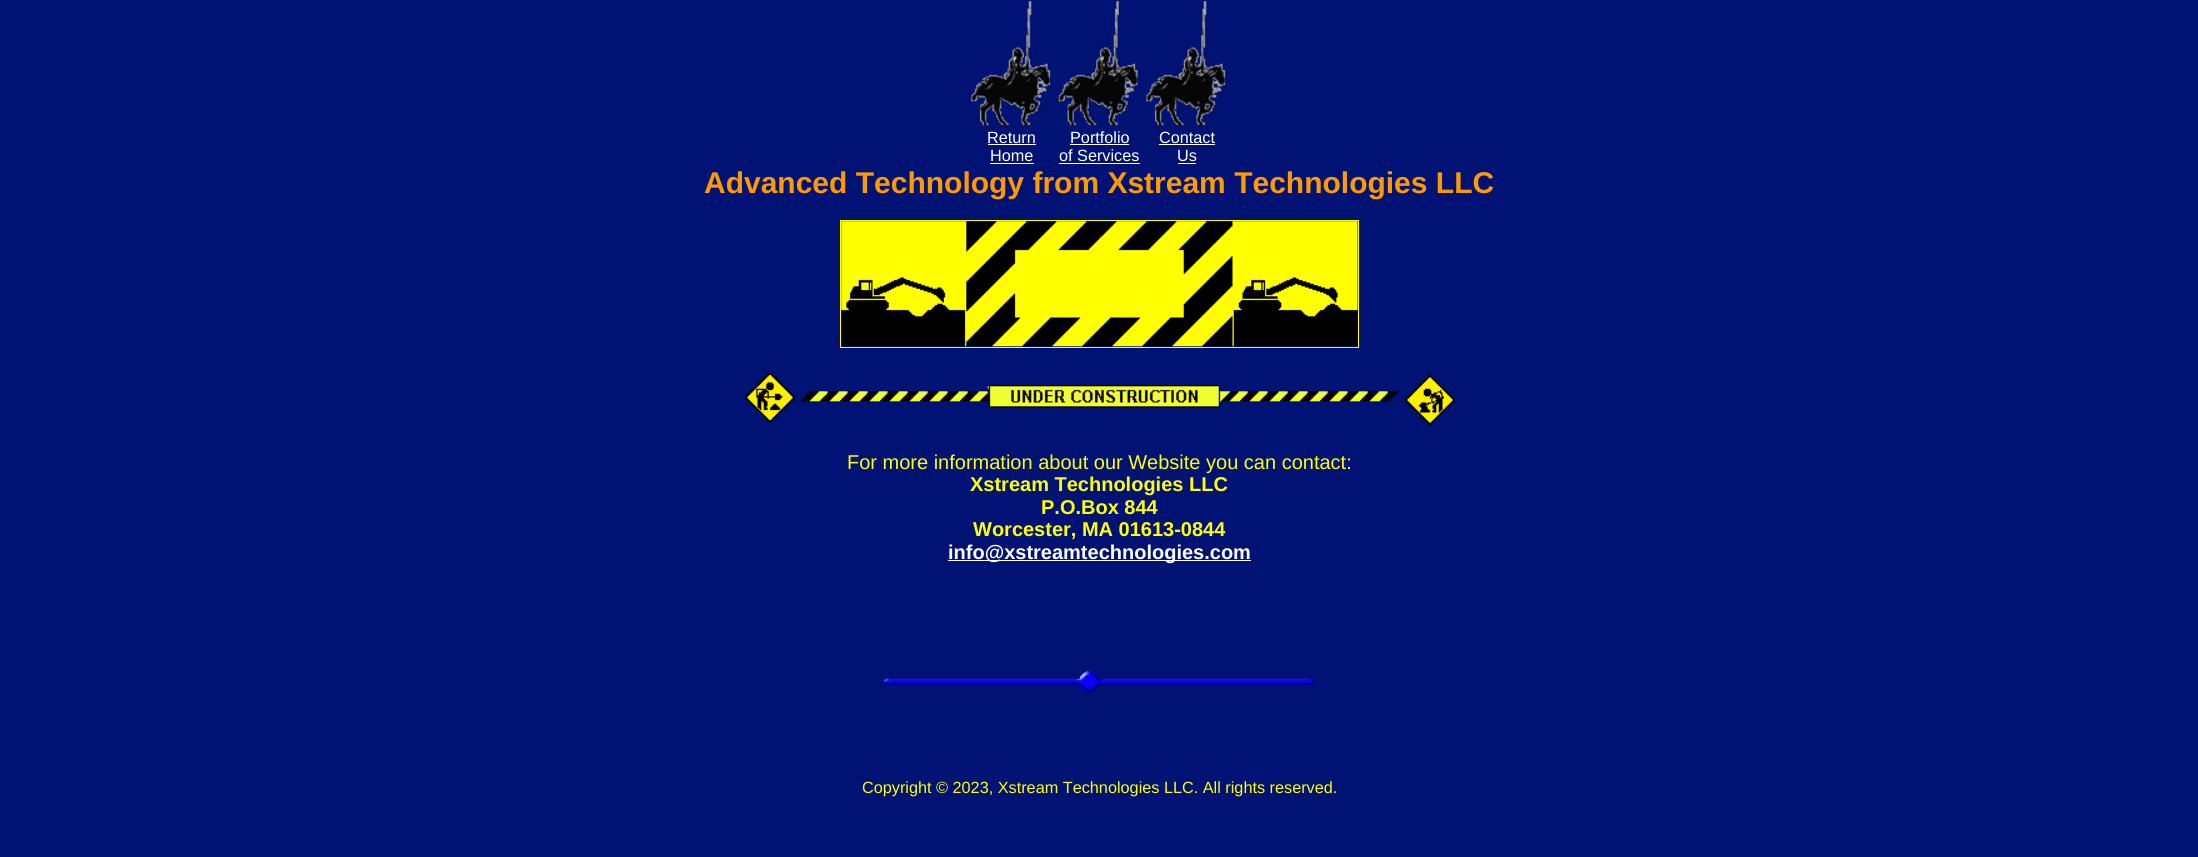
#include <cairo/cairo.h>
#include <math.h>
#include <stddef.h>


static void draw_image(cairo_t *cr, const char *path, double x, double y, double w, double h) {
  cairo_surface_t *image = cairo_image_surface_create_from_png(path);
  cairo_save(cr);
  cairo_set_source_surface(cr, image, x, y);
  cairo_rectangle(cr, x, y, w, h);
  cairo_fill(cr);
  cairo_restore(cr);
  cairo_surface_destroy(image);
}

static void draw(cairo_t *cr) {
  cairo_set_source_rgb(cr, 0, 19 / 255.0, 116 / 255.0);
  cairo_paint(cr);
  draw_image(cr, "images/1.png", 971, 1, 80, 125);
  draw_image(cr, "images/2.png", 1058, 1, 80, 125);
  draw_image(cr, "images/1.png", 1146, 1, 80, 125);
  cairo_set_source_rgb(cr, 1, 1, 1);
  cairo_rectangle(cr, 988, 144, 48, 1);
  cairo_fill(cr);
  cairo_rectangle(cr, 990, 163, 44, 1);
  cairo_fill(cr);
  cairo_rectangle(cr, 1070, 144, 59, 1);
  cairo_fill(cr);
  cairo_rectangle(cr, 1059, 163, 81, 1);
  cairo_fill(cr);
  cairo_rectangle(cr, 1159, 144, 56, 1);
  cairo_fill(cr);
  cairo_rectangle(cr, 1178, 163, 18, 1);
  cairo_fill(cr);
  cairo_rectangle(cr, 840.5, 220.5, 518, 127);
  cairo_set_source_rgb(cr, 1, 1, 0);
  cairo_set_line_width(cr, 1);
  cairo_stroke(cr);
  draw_image(cr, "images/3.png", 841, 221, 517, 126);
  draw_image(cr, "images/4.png", 744, 372, 712, 54);
  cairo_set_source_rgb(cr, 1, 1, 1);
  cairo_rectangle(cr, 948, 560, 303, 1);
  cairo_fill(cr);
  draw_image(cr, "images/5.png", 883, 671, 432, 22);
  cairo_select_font_face(cr, "Liberation Sans", CAIRO_FONT_SLANT_NORMAL, CAIRO_FONT_WEIGHT_NORMAL);
  cairo_set_font_size(cr, 16.25);
  cairo_move_to(cr, 987, 143);
  cairo_show_text(cr, "Return");
  cairo_move_to(cr, 990, 161);
  cairo_show_text(cr, "Home");
  cairo_move_to(cr, 1070, 143);
  cairo_show_text(cr, "Portfolio");
  cairo_move_to(cr, 1059, 161);
  cairo_show_text(cr, "of Services");
  cairo_move_to(cr, 1159, 143);
  cairo_show_text(cr, "Contact");
  cairo_move_to(cr, 1177, 161);
  cairo_show_text(cr, "Us");
  cairo_select_font_face(cr, "Liberation Sans", CAIRO_FONT_SLANT_NORMAL, CAIRO_FONT_WEIGHT_BOLD);
  cairo_set_font_size(cr, 30);
  cairo_set_source_rgb(cr, 1, 153 / 255.0, 0);
  cairo_move_to(cr, 704, 193);
  cairo_show_text(cr, "Advanced Technology from Xstream Technologies LLC");
  cairo_select_font_face(cr, "Liberation Sans", CAIRO_FONT_SLANT_NORMAL, CAIRO_FONT_WEIGHT_NORMAL);
  cairo_set_font_size(cr, 20);
  cairo_set_source_rgb(cr, 1, 1, 0);
  cairo_move_to(cr, 847, 469);
  cairo_show_text(cr, "For more information about our Website you can contact:");
  cairo_select_font_face(cr, "Liberation Sans", CAIRO_FONT_SLANT_NORMAL, CAIRO_FONT_WEIGHT_BOLD);
  cairo_move_to(cr, 970, 491);
  cairo_show_text(cr, "Xstream Technologies LLC");
  cairo_move_to(cr, 1041, 514);
  cairo_show_text(cr, "P.O.Box 844");
  cairo_move_to(cr, 973, 536);
  cairo_show_text(cr, "Worcester, MA 01613-0844");
  cairo_set_source_rgb(cr, 1, 1, 1);
  cairo_move_to(cr, 948, 559);
  cairo_show_text(cr, "info@xstreamtechnologies.com");
  cairo_select_font_face(cr, "Liberation Sans", CAIRO_FONT_SLANT_NORMAL, CAIRO_FONT_WEIGHT_NORMAL);
  cairo_set_font_size(cr, 16.25);
  cairo_set_source_rgb(cr, 1, 1, 0);
  cairo_move_to(cr, 862, 793);
  cairo_show_text(cr, "Copyright © 2023, Xstream Technologies LLC. All rights reserved.");
}

int main(void) {
  cairo_surface_t *surface = cairo_image_surface_create(CAIRO_FORMAT_RGB24, 2198, 857);
  cairo_t *cr = cairo_create(surface);
  cairo_font_options_t *options = cairo_font_options_create();
  cairo_font_options_set_hint_metrics(options, CAIRO_HINT_METRICS_OFF);
  cairo_font_options_set_hint_style(options, CAIRO_HINT_STYLE_NONE);
  cairo_set_font_options(cr, options);
  cairo_set_miter_limit(cr, 4);
  draw(cr);
  cairo_surface_write_to_png(surface, "out.png");
  cairo_font_options_destroy(options);
  cairo_destroy(cr);
  cairo_surface_destroy(surface);
  return 0;
}
